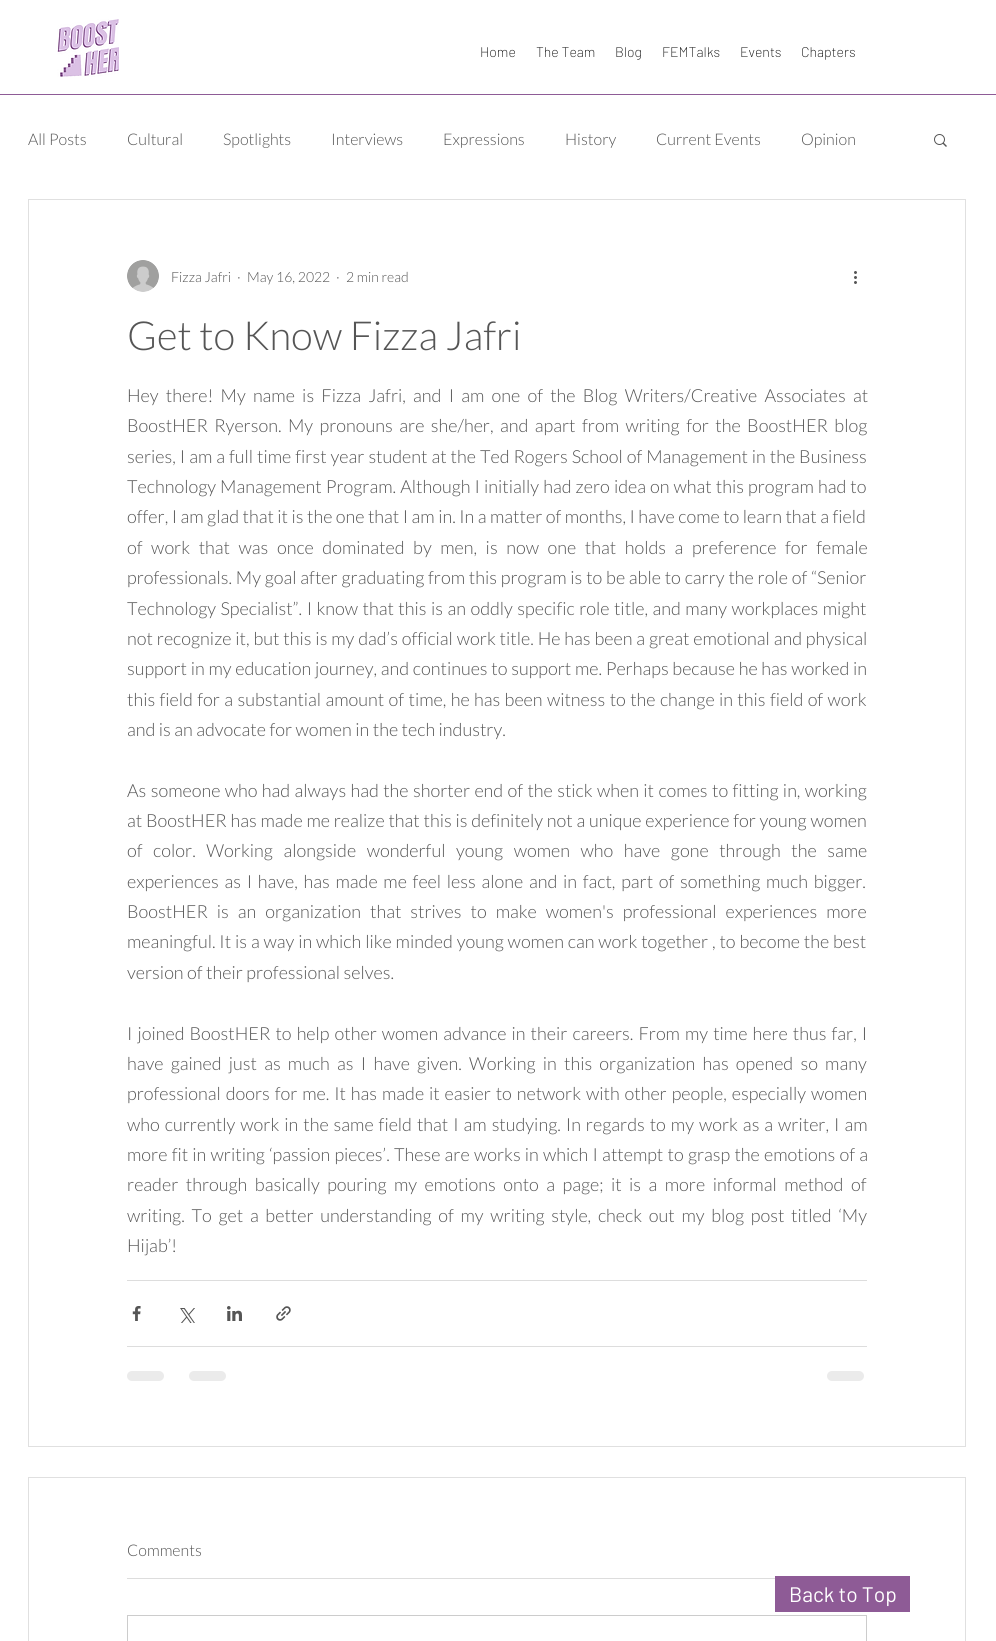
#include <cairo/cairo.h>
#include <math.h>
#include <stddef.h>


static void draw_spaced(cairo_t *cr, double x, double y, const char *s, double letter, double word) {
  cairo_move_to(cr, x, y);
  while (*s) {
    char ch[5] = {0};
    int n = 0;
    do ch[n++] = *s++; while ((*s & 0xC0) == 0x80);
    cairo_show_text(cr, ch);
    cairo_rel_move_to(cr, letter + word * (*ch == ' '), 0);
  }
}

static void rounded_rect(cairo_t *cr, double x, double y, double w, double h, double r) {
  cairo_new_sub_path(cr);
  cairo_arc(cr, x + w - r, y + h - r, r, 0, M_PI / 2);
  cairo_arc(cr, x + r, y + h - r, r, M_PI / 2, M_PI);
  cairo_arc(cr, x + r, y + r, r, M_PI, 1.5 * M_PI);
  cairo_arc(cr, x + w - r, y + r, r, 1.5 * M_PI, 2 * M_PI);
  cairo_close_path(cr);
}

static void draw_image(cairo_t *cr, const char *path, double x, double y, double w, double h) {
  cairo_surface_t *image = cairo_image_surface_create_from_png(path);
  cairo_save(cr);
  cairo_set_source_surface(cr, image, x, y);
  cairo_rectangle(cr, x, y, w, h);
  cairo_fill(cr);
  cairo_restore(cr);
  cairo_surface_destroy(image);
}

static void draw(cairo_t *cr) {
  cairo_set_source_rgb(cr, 1, 1, 1);
  cairo_paint(cr);
  draw_image(cr, "images/1.png", 57, 19, 62, 58);
  cairo_set_source_rgb(cr, 142 / 255.0, 91 / 255.0, 150 / 255.0);
  cairo_rectangle(cr, 0, 94, 996, 1);
  cairo_fill(cr);
  draw_image(cr, "images/2.png", 934, 134, 13, 13);
  cairo_rectangle(cr, 28.5, 199.5, 937, 1247);
  cairo_set_source_rgb(cr, 224 / 255.0, 224 / 255.0, 224 / 255.0);
  cairo_set_line_width(cr, 1);
  cairo_stroke(cr);
  draw_image(cr, "images/3.png", 127, 260, 32, 32);
  draw_image(cr, "images/4.png", 854, 271, 3, 13);
  cairo_set_source_rgb(cr, 221 / 255.0, 221 / 255.0, 221 / 255.0);
  cairo_rectangle(cr, 127, 1280, 740, 1);
  cairo_fill(cr);
  draw_image(cr, "images/5.png", 132, 1306, 9, 15);
  draw_image(cr, "images/6.png", 180, 1308, 15, 15);
  draw_image(cr, "images/7.png", 227, 1306, 15, 15);
  draw_image(cr, "images/8.png", 276, 1306, 15, 15);
  cairo_rectangle(cr, 127, 1346, 740, 1);
  cairo_fill(cr);
  cairo_set_source_rgb(cr, 235 / 255.0, 235 / 255.0, 235 / 255.0);
  rounded_rect(cr, 127, 1371, 37, 10, 5);
  cairo_fill(cr);
  rounded_rect(cr, 189, 1371, 37, 10, 5);
  cairo_fill(cr);
  rounded_rect(cr, 827, 1371, 37, 10, 5);
  cairo_fill(cr);
  cairo_rectangle(cr, 28.5, 1477.5, 937, 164);
  cairo_set_source_rgb(cr, 224 / 255.0, 224 / 255.0, 224 / 255.0);
  cairo_stroke(cr);
  cairo_set_source_rgb(cr, 221 / 255.0, 221 / 255.0, 221 / 255.0);
  cairo_rectangle(cr, 127, 1578, 648, 1);
  cairo_fill(cr);
  cairo_rectangle(cr, 127.5, 1615.5, 739, 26);
  cairo_set_source_rgb(cr, 204 / 255.0, 204 / 255.0, 204 / 255.0);
  cairo_stroke(cr);
  cairo_set_source_rgb(cr, 142 / 255.0, 91 / 255.0, 150 / 255.0);
  cairo_rectangle(cr, 775, 1576, 135, 36);
  cairo_fill(cr);
  cairo_select_font_face(cr, "Barlow ExtraLight", CAIRO_FONT_SLANT_NORMAL, CAIRO_FONT_WEIGHT_NORMAL);
  cairo_set_font_size(cr, 14);
  cairo_set_source_rgb(cr, 0, 0, 0);
  cairo_move_to(cr, 480, 57);
  cairo_show_text(cr, "Home");
  cairo_move_to(cr, 536, 57);
  cairo_show_text(cr, "The Team");
  cairo_move_to(cr, 615, 57);
  cairo_show_text(cr, "Blog");
  cairo_move_to(cr, 662, 57);
  cairo_show_text(cr, "FEMTalks");
  cairo_move_to(cr, 740, 57);
  cairo_show_text(cr, "Events");
  cairo_move_to(cr, 801, 57);
  cairo_show_text(cr, "Chapters");
  cairo_select_font_face(cr, "Lato Light", CAIRO_FONT_SLANT_NORMAL, CAIRO_FONT_WEIGHT_NORMAL);
  cairo_set_font_size(cr, 16);
  cairo_set_source_rgb(cr, 85 / 255.0, 85 / 255.0, 85 / 255.0);
  cairo_move_to(cr, 28, 145);
  cairo_show_text(cr, "All Posts");
  cairo_move_to(cr, 127, 145);
  cairo_show_text(cr, "Cultural");
  cairo_move_to(cr, 223, 145);
  cairo_show_text(cr, "Spotlights");
  cairo_move_to(cr, 331, 145);
  cairo_show_text(cr, "Interviews");
  cairo_move_to(cr, 443, 145);
  cairo_show_text(cr, "Expressions");
  cairo_move_to(cr, 565, 145);
  cairo_show_text(cr, "History");
  cairo_move_to(cr, 656, 145);
  cairo_show_text(cr, "Current Events");
  cairo_move_to(cr, 801, 145);
  cairo_show_text(cr, "Opinion");
  cairo_set_font_size(cr, 14);
  cairo_move_to(cr, 171, 282);
  cairo_show_text(cr, "Fizza Jafri");
  cairo_move_to(cr, 237, 282);
  cairo_show_text(cr, "·");
  cairo_move_to(cr, 247, 282);
  cairo_show_text(cr, "May 16, 2022");
  cairo_move_to(cr, 336, 282);
  cairo_show_text(cr, "·");
  cairo_move_to(cr, 346, 282);
  cairo_show_text(cr, "2 min read");
  cairo_set_font_size(cr, 40);
  cairo_move_to(cr, 127, 350);
  cairo_show_text(cr, "Get to Know Fizza Jafri");
  cairo_set_font_size(cr, 18);
  draw_spaced(cr, 127, 402, "Hey there! My name is Fizza Jafri, and I am one of the Blog Writers/Creative Associates at", 0, 3.75);
  draw_spaced(cr, 127, 432, "BoostHER Ryerson. My pronouns are she/her, and apart from writing for the BoostHER blog", 0, 3);
  draw_spaced(cr, 127, 463, "series, I am a full time first year student at the Ted Rogers School of Management in the Business", 0, 0.5);
  draw_spaced(cr, 127, 493, "Technology Management Program. Although I initially had zero idea on what this program had to", 0, 0.6);
  cairo_move_to(cr, 127, 523);
  cairo_show_text(cr, "offer, I am glad that it is the one that I am in. In a matter of months, I have come to learn that a field");
  draw_spaced(cr, 127, 554, "of work that was once dominated by men, is now one that holds a preference for female", 0, 5.1);
  draw_spaced(cr, 127, 584, "professionals. My goal after graduating from this program is to be able to carry the role of “Senior", 0, 0.3);
  draw_spaced(cr, 127, 615, "Technology Specialist”. I know that this is an oddly specific role title, and many workplaces might", 0, 1);
  draw_spaced(cr, 127, 645, "not recognize it, but this is my dad’s official work title. He has been a great emotional and physical", 0, 0.4);
  draw_spaced(cr, 127, 675, "support in my education journey, and continues to support me. Perhaps because he has worked in", 0, 0.25);
  draw_spaced(cr, 127, 706, "this field for a substantial amount of time, he has been witness to the change in this field of work", 0, 0.9);
  cairo_move_to(cr, 127, 736);
  cairo_show_text(cr, "and is an advocate for women in the tech industry.");
  draw_spaced(cr, 127, 797, "As someone who had always had the shorter end of the stick when it comes to fitting in, working", 0, 0.9);
  draw_spaced(cr, 127, 827, "at BoostHER has made me realize that this is definitely not a unique experience for young women", 0, 0.3);
  draw_spaced(cr, 127, 857, "of color. Working alongside wonderful young women who have gone through the same", 0, 7.1);
  draw_spaced(cr, 127, 888, "experiences as I have, has made me feel less alone and in fact, part of something much bigger.", 0, 2.25);
  draw_spaced(cr, 127, 918, "BoostHER is an organization that strives to make women's professional experiences more", 0, 5.5);
  draw_spaced(cr, 127, 948, "meaningful. It is a way in which like minded young women can work together , to become the best", 0, 0.4);
  cairo_move_to(cr, 127, 979);
  cairo_show_text(cr, "version of their professional selves.");
  draw_spaced(cr, 127, 1040, "I joined BoostHER to help other women advance in their careers. From my time here thus far, I", 0, 1.6);
  draw_spaced(cr, 127, 1070, "have gained just as much as I have given. Working in this organization has opened so many", 0, 3.75);
  draw_spaced(cr, 127, 1100, "professional doors for me. It has made it easier to network with other people, especially women", 0, 1.4);
  draw_spaced(cr, 127, 1131, "who currently work in the same field that I am studying. In regards to my work as a writer, I am", 0, 1.5);
  draw_spaced(cr, 127, 1161, "more fit in writing ‘passion pieces’. These are works in which I attempt to grasp the emotions of a", 0, 0.75);
  draw_spaced(cr, 127, 1191, "reader through basically pouring my emotions onto a page; it is a more informal method of", 0, 4);
  draw_spaced(cr, 127, 1222, "writing. To get a better understanding of my writing style, check out my blog post titled ‘My", 0, 3.25);
  cairo_move_to(cr, 127, 1252);
  cairo_show_text(cr, "Hijab’!");
  cairo_set_font_size(cr, 16);
  cairo_move_to(cr, 127, 1556);
  cairo_show_text(cr, "Comments");
  cairo_select_font_face(cr, "Barlow", CAIRO_FONT_SLANT_NORMAL, CAIRO_FONT_WEIGHT_NORMAL);
  cairo_set_font_size(cr, 21);
  cairo_set_source_rgb(cr, 1, 1, 1);
  cairo_move_to(cr, 789, 1602);
  cairo_show_text(cr, "Back to Top");
}

int main(void) {
  cairo_surface_t *surface = cairo_image_surface_create(CAIRO_FORMAT_RGB24, 996, 1641);
  cairo_t *cr = cairo_create(surface);
  cairo_font_options_t *options = cairo_font_options_create();
  cairo_font_options_set_hint_metrics(options, CAIRO_HINT_METRICS_OFF);
  cairo_font_options_set_hint_style(options, CAIRO_HINT_STYLE_NONE);
  cairo_set_font_options(cr, options);
  cairo_set_miter_limit(cr, 4);
  draw(cr);
  cairo_surface_write_to_png(surface, "out.png");
  cairo_font_options_destroy(options);
  cairo_destroy(cr);
  cairo_surface_destroy(surface);
  return 0;
}
